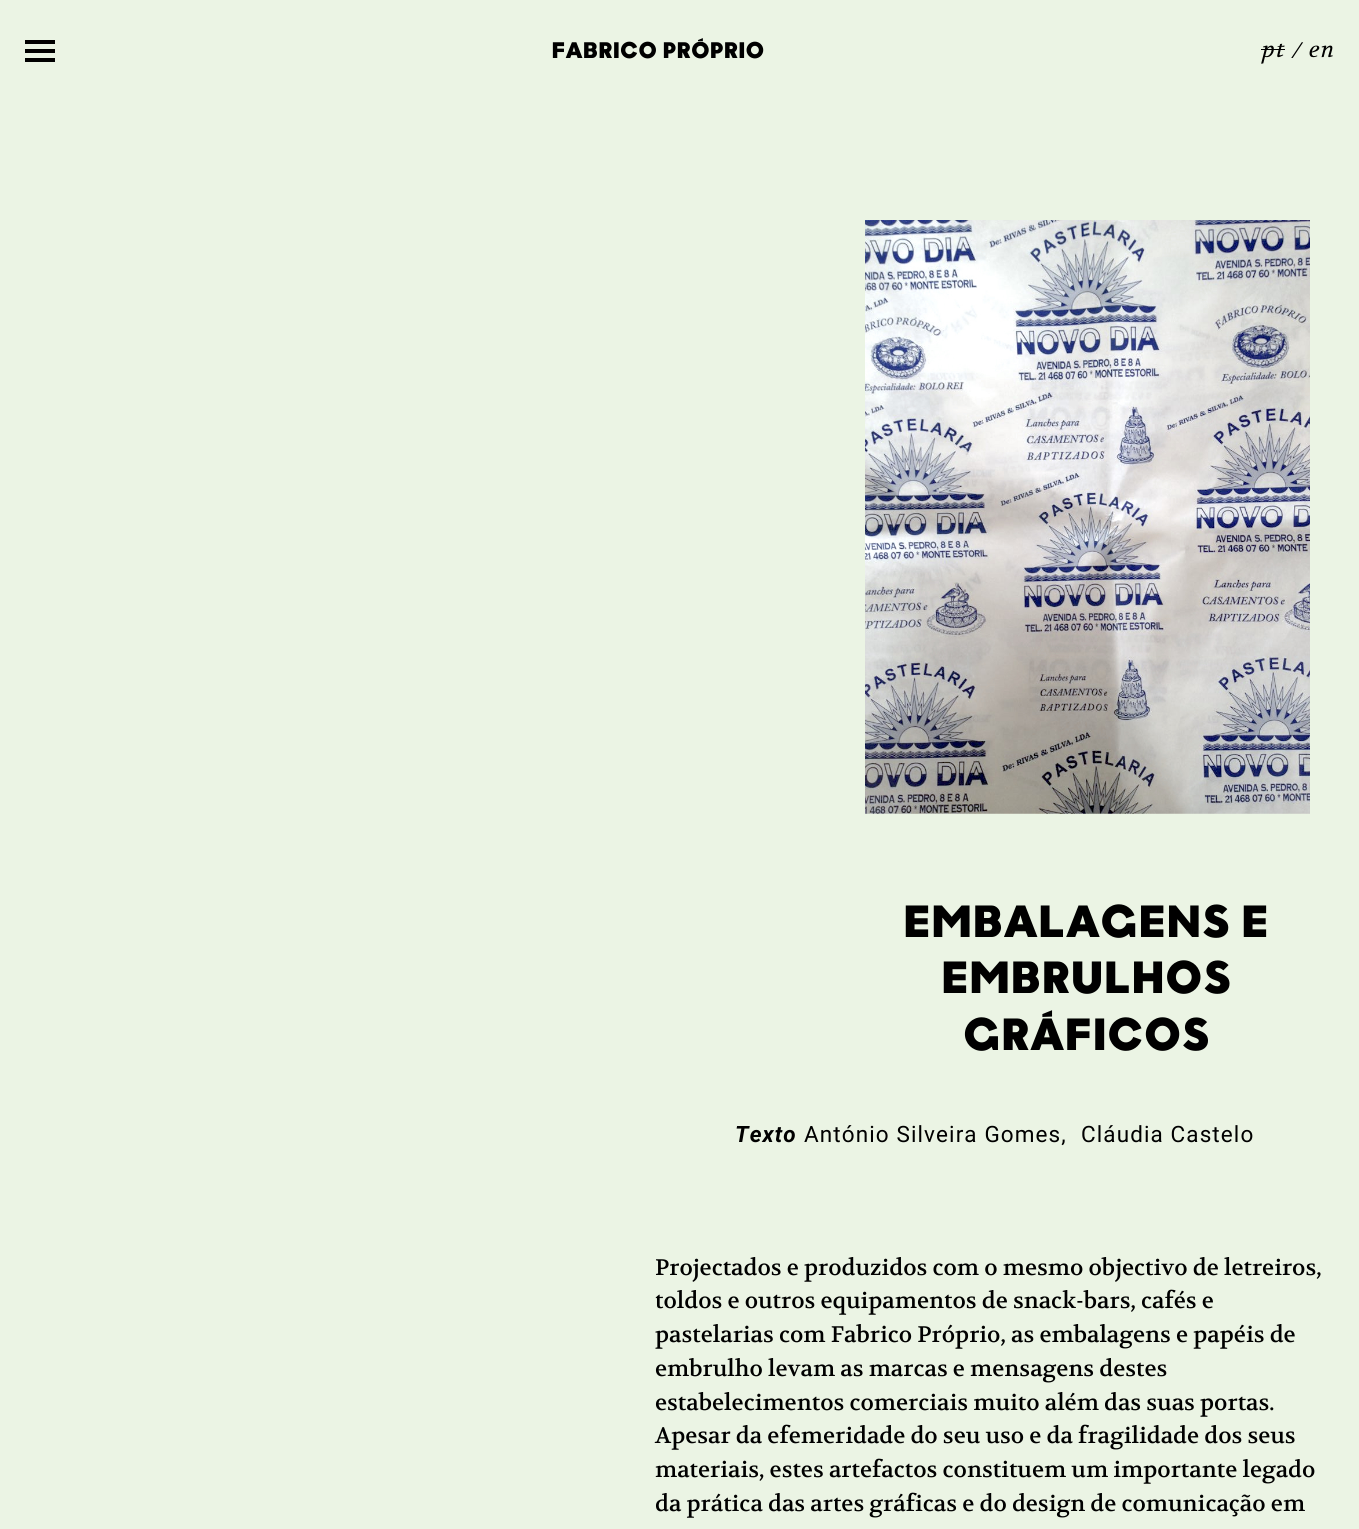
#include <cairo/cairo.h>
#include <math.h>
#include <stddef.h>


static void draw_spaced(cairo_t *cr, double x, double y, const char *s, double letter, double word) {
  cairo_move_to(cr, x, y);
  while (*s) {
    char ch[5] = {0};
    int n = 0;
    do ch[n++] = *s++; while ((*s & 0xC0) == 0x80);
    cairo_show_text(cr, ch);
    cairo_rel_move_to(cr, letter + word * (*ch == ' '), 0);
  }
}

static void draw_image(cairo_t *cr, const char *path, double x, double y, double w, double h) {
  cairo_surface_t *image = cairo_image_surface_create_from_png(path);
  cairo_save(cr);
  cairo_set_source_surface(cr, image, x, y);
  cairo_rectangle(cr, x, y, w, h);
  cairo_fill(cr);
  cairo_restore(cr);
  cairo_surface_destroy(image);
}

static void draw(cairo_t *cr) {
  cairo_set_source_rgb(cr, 235 / 255.0, 244 / 255.0, 228 / 255.0);
  cairo_paint(cr);
  cairo_set_source_rgb(cr, 0, 0, 0);
  cairo_rectangle(cr, 25, 40, 30, 4);
  cairo_fill(cr);
  cairo_rectangle(cr, 25, 49, 30, 4);
  cairo_fill(cr);
  cairo_rectangle(cr, 25, 58, 30, 4);
  cairo_fill(cr);
  cairo_rectangle(cr, 1261, 49, 24, 1);
  cairo_fill(cr);
  draw_image(cr, "images/1.png", 865, 220, 445, 594);
  cairo_select_font_face(cr, "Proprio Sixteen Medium", CAIRO_FONT_SLANT_NORMAL, CAIRO_FONT_WEIGHT_NORMAL);
  cairo_set_font_size(cr, 22.5);
  draw_spaced(cr, 552, 58, "FABRICO PRÓPRIO", 1.1, 0);
  cairo_select_font_face(cr, "Volkhov", CAIRO_FONT_SLANT_ITALIC, CAIRO_FONT_WEIGHT_NORMAL);
  draw_spaced(cr, 1262, 57, "pt", 1.1, 0);
  draw_spaced(cr, 1292, 58, "/", 1.1, 0);
  draw_spaced(cr, 1309, 57, "en", 1.1, 0);
  cairo_select_font_face(cr, "Proprio Sixteen Medium", CAIRO_FONT_SLANT_NORMAL, CAIRO_FONT_WEIGHT_NORMAL);
  cairo_set_font_size(cr, 45);
  draw_spaced(cr, 904, 937, "EMBALAGENS E", 2.25, 0);
  draw_spaced(cr, 942, 993, "EMBRULHOS", 2.25, 0);
  draw_spaced(cr, 964, 1050, "GRÁFICOS", 2.25, 0);
  cairo_select_font_face(cr, "Roboto", CAIRO_FONT_SLANT_ITALIC, CAIRO_FONT_WEIGHT_BOLD);
  cairo_set_font_size(cr, 22.5);
  draw_spaced(cr, 735, 1142, "Texto", 1.1, 0);
  cairo_select_font_face(cr, "Roboto", CAIRO_FONT_SLANT_NORMAL, CAIRO_FONT_WEIGHT_NORMAL);
  draw_spaced(cr, 804, 1142, "António Silveira Gomes,", 1.1, 0);
  draw_spaced(cr, 1081, 1142, "Cláudia Castelo", 1.1, 0);
  cairo_select_font_face(cr, "Volkhov", CAIRO_FONT_SLANT_NORMAL, CAIRO_FONT_WEIGHT_NORMAL);
  cairo_move_to(cr, 655, 1275);
  cairo_show_text(cr, "Projectados e produzidos com o mesmo objectivo de letreiros,");
  cairo_move_to(cr, 655, 1308);
  cairo_show_text(cr, "toldos e outros equipamentos de snack-bars, cafés e");
  cairo_move_to(cr, 655, 1342);
  cairo_show_text(cr, "pastelarias com Fabrico Próprio, as embalagens e papéis de");
  cairo_move_to(cr, 655, 1376);
  cairo_show_text(cr, "embrulho levam as marcas e mensagens destes");
  cairo_move_to(cr, 655, 1410);
  cairo_show_text(cr, "estabelecimentos comerciais muito além das suas portas.");
  cairo_move_to(cr, 655, 1443);
  cairo_show_text(cr, "Apesar da efemeridade do seu uso e da fragilidade dos seus");
  cairo_move_to(cr, 655, 1477);
  cairo_show_text(cr, "materiais, estes artefactos constituem um importante legado");
  cairo_move_to(cr, 655, 1511);
  cairo_show_text(cr, "da prática das artes gráficas e do design de comunicação em");
}

int main(void) {
  cairo_surface_t *surface = cairo_image_surface_create(CAIRO_FORMAT_RGB24, 1359, 1529);
  cairo_t *cr = cairo_create(surface);
  cairo_font_options_t *options = cairo_font_options_create();
  cairo_font_options_set_hint_metrics(options, CAIRO_HINT_METRICS_OFF);
  cairo_font_options_set_hint_style(options, CAIRO_HINT_STYLE_NONE);
  cairo_set_font_options(cr, options);
  cairo_set_miter_limit(cr, 4);
  draw(cr);
  cairo_surface_write_to_png(surface, "out.png");
  cairo_font_options_destroy(options);
  cairo_destroy(cr);
  cairo_surface_destroy(surface);
  return 0;
}
